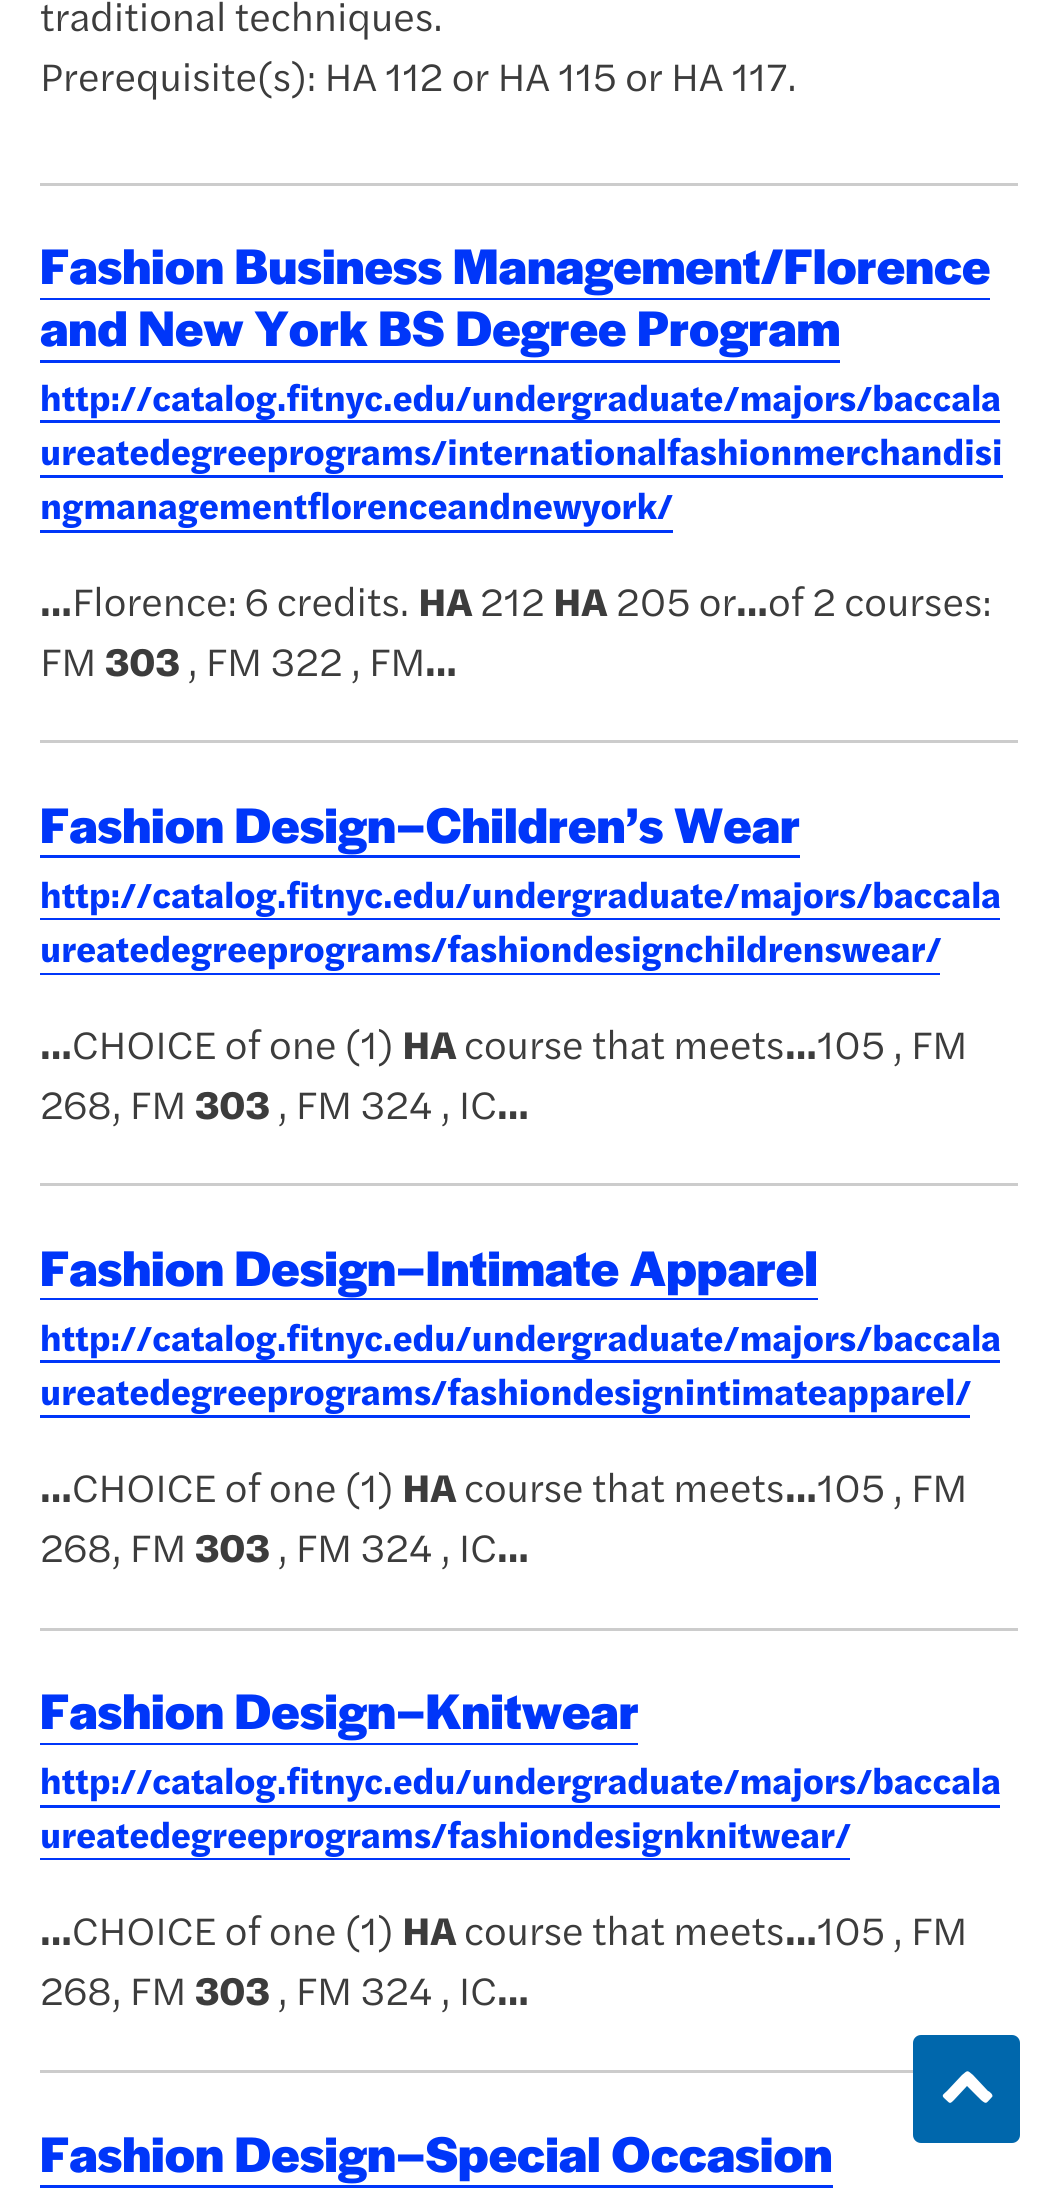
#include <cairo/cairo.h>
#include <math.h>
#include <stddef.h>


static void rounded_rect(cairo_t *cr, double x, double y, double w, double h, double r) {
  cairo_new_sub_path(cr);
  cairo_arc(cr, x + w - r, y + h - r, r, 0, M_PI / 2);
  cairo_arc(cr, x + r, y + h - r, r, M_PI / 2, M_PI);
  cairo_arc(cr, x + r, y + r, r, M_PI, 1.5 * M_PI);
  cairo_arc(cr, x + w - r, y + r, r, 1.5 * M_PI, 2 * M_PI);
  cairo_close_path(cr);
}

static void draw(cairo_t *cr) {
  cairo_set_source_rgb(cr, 1, 1, 1);
  cairo_paint(cr);
  cairo_set_source_rgb(cr, 204 / 255.0, 204 / 255.0, 204 / 255.0);
  cairo_rectangle(cr, 40, 183, 978, 3);
  cairo_fill(cr);
  cairo_set_source_rgb(cr, 0, 54 / 255.0, 249 / 255.0);
  cairo_rectangle(cr, 40, 298, 950, 2);
  cairo_fill(cr);
  cairo_rectangle(cr, 40, 360, 800, 3);
  cairo_fill(cr);
  cairo_rectangle(cr, 40, 420, 960, 3);
  cairo_fill(cr);
  cairo_rectangle(cr, 40, 475, 963, 3);
  cairo_fill(cr);
  cairo_rectangle(cr, 40, 530, 633, 3);
  cairo_fill(cr);
  cairo_set_source_rgb(cr, 204 / 255.0, 204 / 255.0, 204 / 255.0);
  cairo_rectangle(cr, 40, 740, 978, 3);
  cairo_fill(cr);
  cairo_set_source_rgb(cr, 0, 54 / 255.0, 249 / 255.0);
  cairo_rectangle(cr, 40, 855, 760, 3);
  cairo_fill(cr);
  cairo_rectangle(cr, 40, 918, 960, 2);
  cairo_fill(cr);
  cairo_rectangle(cr, 40, 973, 900, 2);
  cairo_fill(cr);
  cairo_set_source_rgb(cr, 204 / 255.0, 204 / 255.0, 204 / 255.0);
  cairo_rectangle(cr, 40, 1183, 978, 3);
  cairo_fill(cr);
  cairo_set_source_rgb(cr, 0, 54 / 255.0, 249 / 255.0);
  cairo_rectangle(cr, 40, 1298, 778, 2);
  cairo_fill(cr);
  cairo_rectangle(cr, 40, 1360, 960, 3);
  cairo_fill(cr);
  cairo_rectangle(cr, 40, 1415, 930, 3);
  cairo_fill(cr);
  cairo_set_source_rgb(cr, 204 / 255.0, 204 / 255.0, 204 / 255.0);
  cairo_rectangle(cr, 40, 1628, 978, 3);
  cairo_fill(cr);
  cairo_set_source_rgb(cr, 0, 54 / 255.0, 249 / 255.0);
  cairo_rectangle(cr, 40, 1743, 598, 2);
  cairo_fill(cr);
  cairo_rectangle(cr, 40, 1805, 960, 3);
  cairo_fill(cr);
  cairo_rectangle(cr, 40, 1858, 810, 2);
  cairo_fill(cr);
  cairo_set_source_rgb(cr, 204 / 255.0, 204 / 255.0, 204 / 255.0);
  cairo_rectangle(cr, 40, 2070, 873, 3);
  cairo_fill(cr);
  cairo_set_source_rgb(cr, 0, 54 / 255.0, 249 / 255.0);
  cairo_rectangle(cr, 40, 2185, 793, 3);
  cairo_fill(cr);
  cairo_set_source_rgb(cr, 0, 103 / 255.0, 172 / 255.0);
  rounded_rect(cr, 913, 2035, 107, 108, 8);
  cairo_fill(cr);
  cairo_set_source_rgb(cr, 1, 1, 1);
  cairo_new_path(cr);
  cairo_move_to(cr, 992, 2097);
  cairo_curve_to(cr, 986, 2103, 987, 2105, 981, 2100);
  cairo_line_to(cr, 967, 2086);
  cairo_line_to(cr, 954, 2100);
  cairo_curve_to(cr, 949, 2105, 950, 2103, 944, 2098);
  cairo_curve_to(cr, 941, 2095, 944, 2094, 947, 2091);
  cairo_line_to(cr, 962, 2075);
  cairo_curve_to(cr, 968, 2070, 967, 2070, 973, 2075);
  cairo_line_to(cr, 988, 2091);
  cairo_curve_to(cr, 989, 2091, 994, 2095, 992, 2097);
  cairo_close_path(cr);
  cairo_fill(cr);
  cairo_select_font_face(cr, "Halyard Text", CAIRO_FONT_SLANT_NORMAL, CAIRO_FONT_WEIGHT_NORMAL);
  cairo_set_font_size(cr, 40);
  cairo_set_source_rgb(cr, 60 / 255.0, 60 / 255.0, 60 / 255.0);
  cairo_move_to(cr, 40, 31);
  cairo_show_text(cr, "traditional techniques.");
  cairo_move_to(cr, 40, 91);
  cairo_show_text(cr, "Prerequisite(s): HA 112 or HA 115 or HA 117.");
  cairo_select_font_face(cr, "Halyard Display", CAIRO_FONT_SLANT_NORMAL, CAIRO_FONT_WEIGHT_BOLD);
  cairo_set_font_size(cr, 52);
  cairo_set_source_rgb(cr, 0, 54 / 255.0, 249 / 255.0);
  cairo_move_to(cr, 40, 284);
  cairo_show_text(cr, "Fashion Business Management/Florence");
  cairo_move_to(cr, 40, 346);
  cairo_show_text(cr, "and New York BS Degree Program");
  cairo_select_font_face(cr, "Halyard Text", CAIRO_FONT_SLANT_NORMAL, CAIRO_FONT_WEIGHT_BOLD);
  cairo_set_font_size(cr, 36);
  cairo_move_to(cr, 40, 411);
  cairo_show_text(cr, "http://catalog.fitnyc.edu/undergraduate/majors/baccala");
  cairo_move_to(cr, 40, 465);
  cairo_show_text(cr, "ureatedegreeprograms/internationalfashionmerchandisi");
  cairo_move_to(cr, 40, 519);
  cairo_show_text(cr, "ngmanagementflorenceandnewyork/");
  cairo_set_font_size(cr, 40);
  cairo_set_source_rgb(cr, 60 / 255.0, 60 / 255.0, 60 / 255.0);
  cairo_move_to(cr, 40, 616);
  cairo_show_text(cr, "...");
  cairo_select_font_face(cr, "Halyard Text", CAIRO_FONT_SLANT_NORMAL, CAIRO_FONT_WEIGHT_NORMAL);
  cairo_move_to(cr, 72, 616);
  cairo_show_text(cr, "Florence: 6 credits.");
  cairo_select_font_face(cr, "Halyard Text", CAIRO_FONT_SLANT_NORMAL, CAIRO_FONT_WEIGHT_BOLD);
  cairo_move_to(cr, 418, 616);
  cairo_show_text(cr, "HA");
  cairo_select_font_face(cr, "Halyard Text", CAIRO_FONT_SLANT_NORMAL, CAIRO_FONT_WEIGHT_NORMAL);
  cairo_move_to(cr, 480, 616);
  cairo_show_text(cr, "212");
  cairo_select_font_face(cr, "Halyard Text", CAIRO_FONT_SLANT_NORMAL, CAIRO_FONT_WEIGHT_BOLD);
  cairo_move_to(cr, 553, 616);
  cairo_show_text(cr, "HA");
  cairo_select_font_face(cr, "Halyard Text", CAIRO_FONT_SLANT_NORMAL, CAIRO_FONT_WEIGHT_NORMAL);
  cairo_move_to(cr, 616, 616);
  cairo_show_text(cr, "205 or");
  cairo_select_font_face(cr, "Halyard Text", CAIRO_FONT_SLANT_NORMAL, CAIRO_FONT_WEIGHT_BOLD);
  cairo_move_to(cr, 736, 616);
  cairo_show_text(cr, "...");
  cairo_select_font_face(cr, "Halyard Text", CAIRO_FONT_SLANT_NORMAL, CAIRO_FONT_WEIGHT_NORMAL);
  cairo_move_to(cr, 768, 616);
  cairo_show_text(cr, "of 2 courses:");
  cairo_move_to(cr, 40, 676);
  cairo_show_text(cr, "FM");
  cairo_select_font_face(cr, "Halyard Text", CAIRO_FONT_SLANT_NORMAL, CAIRO_FONT_WEIGHT_BOLD);
  cairo_move_to(cr, 105, 676);
  cairo_show_text(cr, "303");
  cairo_select_font_face(cr, "Halyard Text", CAIRO_FONT_SLANT_NORMAL, CAIRO_FONT_WEIGHT_NORMAL);
  cairo_move_to(cr, 188, 676);
  cairo_show_text(cr, ", FM 322 , FM");
  cairo_select_font_face(cr, "Halyard Text", CAIRO_FONT_SLANT_NORMAL, CAIRO_FONT_WEIGHT_BOLD);
  cairo_move_to(cr, 425, 676);
  cairo_show_text(cr, "...");
  cairo_select_font_face(cr, "Halyard Display", CAIRO_FONT_SLANT_NORMAL, CAIRO_FONT_WEIGHT_BOLD);
  cairo_set_font_size(cr, 52);
  cairo_set_source_rgb(cr, 0, 54 / 255.0, 249 / 255.0);
  cairo_move_to(cr, 40, 843);
  cairo_show_text(cr, "Fashion Design–Children’s Wear");
  cairo_select_font_face(cr, "Halyard Text", CAIRO_FONT_SLANT_NORMAL, CAIRO_FONT_WEIGHT_BOLD);
  cairo_set_font_size(cr, 36);
  cairo_move_to(cr, 40, 908);
  cairo_show_text(cr, "http://catalog.fitnyc.edu/undergraduate/majors/baccala");
  cairo_move_to(cr, 40, 962);
  cairo_show_text(cr, "ureatedegreeprograms/fashiondesignchildrenswear/");
  cairo_set_font_size(cr, 40);
  cairo_set_source_rgb(cr, 60 / 255.0, 60 / 255.0, 60 / 255.0);
  cairo_move_to(cr, 40, 1059);
  cairo_show_text(cr, "...");
  cairo_select_font_face(cr, "Halyard Text", CAIRO_FONT_SLANT_NORMAL, CAIRO_FONT_WEIGHT_NORMAL);
  cairo_move_to(cr, 72, 1059);
  cairo_show_text(cr, "CHOICE of one (1)");
  cairo_select_font_face(cr, "Halyard Text", CAIRO_FONT_SLANT_NORMAL, CAIRO_FONT_WEIGHT_BOLD);
  cairo_move_to(cr, 402, 1059);
  cairo_show_text(cr, "HA");
  cairo_select_font_face(cr, "Halyard Text", CAIRO_FONT_SLANT_NORMAL, CAIRO_FONT_WEIGHT_NORMAL);
  cairo_move_to(cr, 464, 1059);
  cairo_show_text(cr, "course that meets");
  cairo_select_font_face(cr, "Halyard Text", CAIRO_FONT_SLANT_NORMAL, CAIRO_FONT_WEIGHT_BOLD);
  cairo_move_to(cr, 785, 1059);
  cairo_show_text(cr, "...");
  cairo_select_font_face(cr, "Halyard Text", CAIRO_FONT_SLANT_NORMAL, CAIRO_FONT_WEIGHT_NORMAL);
  cairo_move_to(cr, 817, 1059);
  cairo_show_text(cr, "105 , FM");
  cairo_move_to(cr, 40, 1119);
  cairo_show_text(cr, "268, FM");
  cairo_select_font_face(cr, "Halyard Text", CAIRO_FONT_SLANT_NORMAL, CAIRO_FONT_WEIGHT_BOLD);
  cairo_move_to(cr, 195, 1119);
  cairo_show_text(cr, "303");
  cairo_select_font_face(cr, "Halyard Text", CAIRO_FONT_SLANT_NORMAL, CAIRO_FONT_WEIGHT_NORMAL);
  cairo_move_to(cr, 278, 1119);
  cairo_show_text(cr, ", FM 324 , IC");
  cairo_select_font_face(cr, "Halyard Text", CAIRO_FONT_SLANT_NORMAL, CAIRO_FONT_WEIGHT_BOLD);
  cairo_move_to(cr, 497, 1119);
  cairo_show_text(cr, "...");
  cairo_select_font_face(cr, "Halyard Display", CAIRO_FONT_SLANT_NORMAL, CAIRO_FONT_WEIGHT_BOLD);
  cairo_set_font_size(cr, 52);
  cairo_set_source_rgb(cr, 0, 54 / 255.0, 249 / 255.0);
  cairo_move_to(cr, 40, 1286);
  cairo_show_text(cr, "Fashion Design–Intimate Apparel");
  cairo_select_font_face(cr, "Halyard Text", CAIRO_FONT_SLANT_NORMAL, CAIRO_FONT_WEIGHT_BOLD);
  cairo_set_font_size(cr, 36);
  cairo_move_to(cr, 40, 1351);
  cairo_show_text(cr, "http://catalog.fitnyc.edu/undergraduate/majors/baccala");
  cairo_move_to(cr, 40, 1405);
  cairo_show_text(cr, "ureatedegreeprograms/fashiondesignintimateapparel/");
  cairo_set_font_size(cr, 40);
  cairo_set_source_rgb(cr, 60 / 255.0, 60 / 255.0, 60 / 255.0);
  cairo_move_to(cr, 40, 1502);
  cairo_show_text(cr, "...");
  cairo_select_font_face(cr, "Halyard Text", CAIRO_FONT_SLANT_NORMAL, CAIRO_FONT_WEIGHT_NORMAL);
  cairo_move_to(cr, 72, 1502);
  cairo_show_text(cr, "CHOICE of one (1)");
  cairo_select_font_face(cr, "Halyard Text", CAIRO_FONT_SLANT_NORMAL, CAIRO_FONT_WEIGHT_BOLD);
  cairo_move_to(cr, 402, 1502);
  cairo_show_text(cr, "HA");
  cairo_select_font_face(cr, "Halyard Text", CAIRO_FONT_SLANT_NORMAL, CAIRO_FONT_WEIGHT_NORMAL);
  cairo_move_to(cr, 464, 1502);
  cairo_show_text(cr, "course that meets");
  cairo_select_font_face(cr, "Halyard Text", CAIRO_FONT_SLANT_NORMAL, CAIRO_FONT_WEIGHT_BOLD);
  cairo_move_to(cr, 785, 1502);
  cairo_show_text(cr, "...");
  cairo_select_font_face(cr, "Halyard Text", CAIRO_FONT_SLANT_NORMAL, CAIRO_FONT_WEIGHT_NORMAL);
  cairo_move_to(cr, 817, 1502);
  cairo_show_text(cr, "105 , FM");
  cairo_move_to(cr, 40, 1562);
  cairo_show_text(cr, "268, FM");
  cairo_select_font_face(cr, "Halyard Text", CAIRO_FONT_SLANT_NORMAL, CAIRO_FONT_WEIGHT_BOLD);
  cairo_move_to(cr, 195, 1562);
  cairo_show_text(cr, "303");
  cairo_select_font_face(cr, "Halyard Text", CAIRO_FONT_SLANT_NORMAL, CAIRO_FONT_WEIGHT_NORMAL);
  cairo_move_to(cr, 278, 1562);
  cairo_show_text(cr, ", FM 324 , IC");
  cairo_select_font_face(cr, "Halyard Text", CAIRO_FONT_SLANT_NORMAL, CAIRO_FONT_WEIGHT_BOLD);
  cairo_move_to(cr, 497, 1562);
  cairo_show_text(cr, "...");
  cairo_select_font_face(cr, "Halyard Display", CAIRO_FONT_SLANT_NORMAL, CAIRO_FONT_WEIGHT_BOLD);
  cairo_set_font_size(cr, 52);
  cairo_set_source_rgb(cr, 0, 54 / 255.0, 249 / 255.0);
  cairo_move_to(cr, 40, 1729);
  cairo_show_text(cr, "Fashion Design–Knitwear");
  cairo_select_font_face(cr, "Halyard Text", CAIRO_FONT_SLANT_NORMAL, CAIRO_FONT_WEIGHT_BOLD);
  cairo_set_font_size(cr, 36);
  cairo_move_to(cr, 40, 1794);
  cairo_show_text(cr, "http://catalog.fitnyc.edu/undergraduate/majors/baccala");
  cairo_move_to(cr, 40, 1848);
  cairo_show_text(cr, "ureatedegreeprograms/fashiondesignknitwear/");
  cairo_set_font_size(cr, 40);
  cairo_set_source_rgb(cr, 60 / 255.0, 60 / 255.0, 60 / 255.0);
  cairo_move_to(cr, 40, 1945);
  cairo_show_text(cr, "...");
  cairo_select_font_face(cr, "Halyard Text", CAIRO_FONT_SLANT_NORMAL, CAIRO_FONT_WEIGHT_NORMAL);
  cairo_move_to(cr, 72, 1945);
  cairo_show_text(cr, "CHOICE of one (1)");
  cairo_select_font_face(cr, "Halyard Text", CAIRO_FONT_SLANT_NORMAL, CAIRO_FONT_WEIGHT_BOLD);
  cairo_move_to(cr, 402, 1945);
  cairo_show_text(cr, "HA");
  cairo_select_font_face(cr, "Halyard Text", CAIRO_FONT_SLANT_NORMAL, CAIRO_FONT_WEIGHT_NORMAL);
  cairo_move_to(cr, 464, 1945);
  cairo_show_text(cr, "course that meets");
  cairo_select_font_face(cr, "Halyard Text", CAIRO_FONT_SLANT_NORMAL, CAIRO_FONT_WEIGHT_BOLD);
  cairo_move_to(cr, 785, 1945);
  cairo_show_text(cr, "...");
  cairo_select_font_face(cr, "Halyard Text", CAIRO_FONT_SLANT_NORMAL, CAIRO_FONT_WEIGHT_NORMAL);
  cairo_move_to(cr, 817, 1945);
  cairo_show_text(cr, "105 , FM");
  cairo_move_to(cr, 40, 2005);
  cairo_show_text(cr, "268, FM");
  cairo_select_font_face(cr, "Halyard Text", CAIRO_FONT_SLANT_NORMAL, CAIRO_FONT_WEIGHT_BOLD);
  cairo_move_to(cr, 195, 2005);
  cairo_show_text(cr, "303");
  cairo_select_font_face(cr, "Halyard Text", CAIRO_FONT_SLANT_NORMAL, CAIRO_FONT_WEIGHT_NORMAL);
  cairo_move_to(cr, 278, 2005);
  cairo_show_text(cr, ", FM 324 , IC");
  cairo_select_font_face(cr, "Halyard Text", CAIRO_FONT_SLANT_NORMAL, CAIRO_FONT_WEIGHT_BOLD);
  cairo_move_to(cr, 497, 2005);
  cairo_show_text(cr, "...");
  cairo_select_font_face(cr, "Halyard Display", CAIRO_FONT_SLANT_NORMAL, CAIRO_FONT_WEIGHT_BOLD);
  cairo_set_font_size(cr, 52);
  cairo_set_source_rgb(cr, 0, 54 / 255.0, 249 / 255.0);
  cairo_move_to(cr, 40, 2172);
  cairo_show_text(cr, "Fashion Design–Special Occasion");
}

int main(void) {
  cairo_surface_t *surface = cairo_image_surface_create(CAIRO_FORMAT_RGB24, 1056, 2205);
  cairo_t *cr = cairo_create(surface);
  cairo_font_options_t *options = cairo_font_options_create();
  cairo_font_options_set_hint_metrics(options, CAIRO_HINT_METRICS_OFF);
  cairo_font_options_set_hint_style(options, CAIRO_HINT_STYLE_NONE);
  cairo_set_font_options(cr, options);
  cairo_set_miter_limit(cr, 4);
  draw(cr);
  cairo_surface_write_to_png(surface, "out.png");
  cairo_font_options_destroy(options);
  cairo_destroy(cr);
  cairo_surface_destroy(surface);
  return 0;
}
